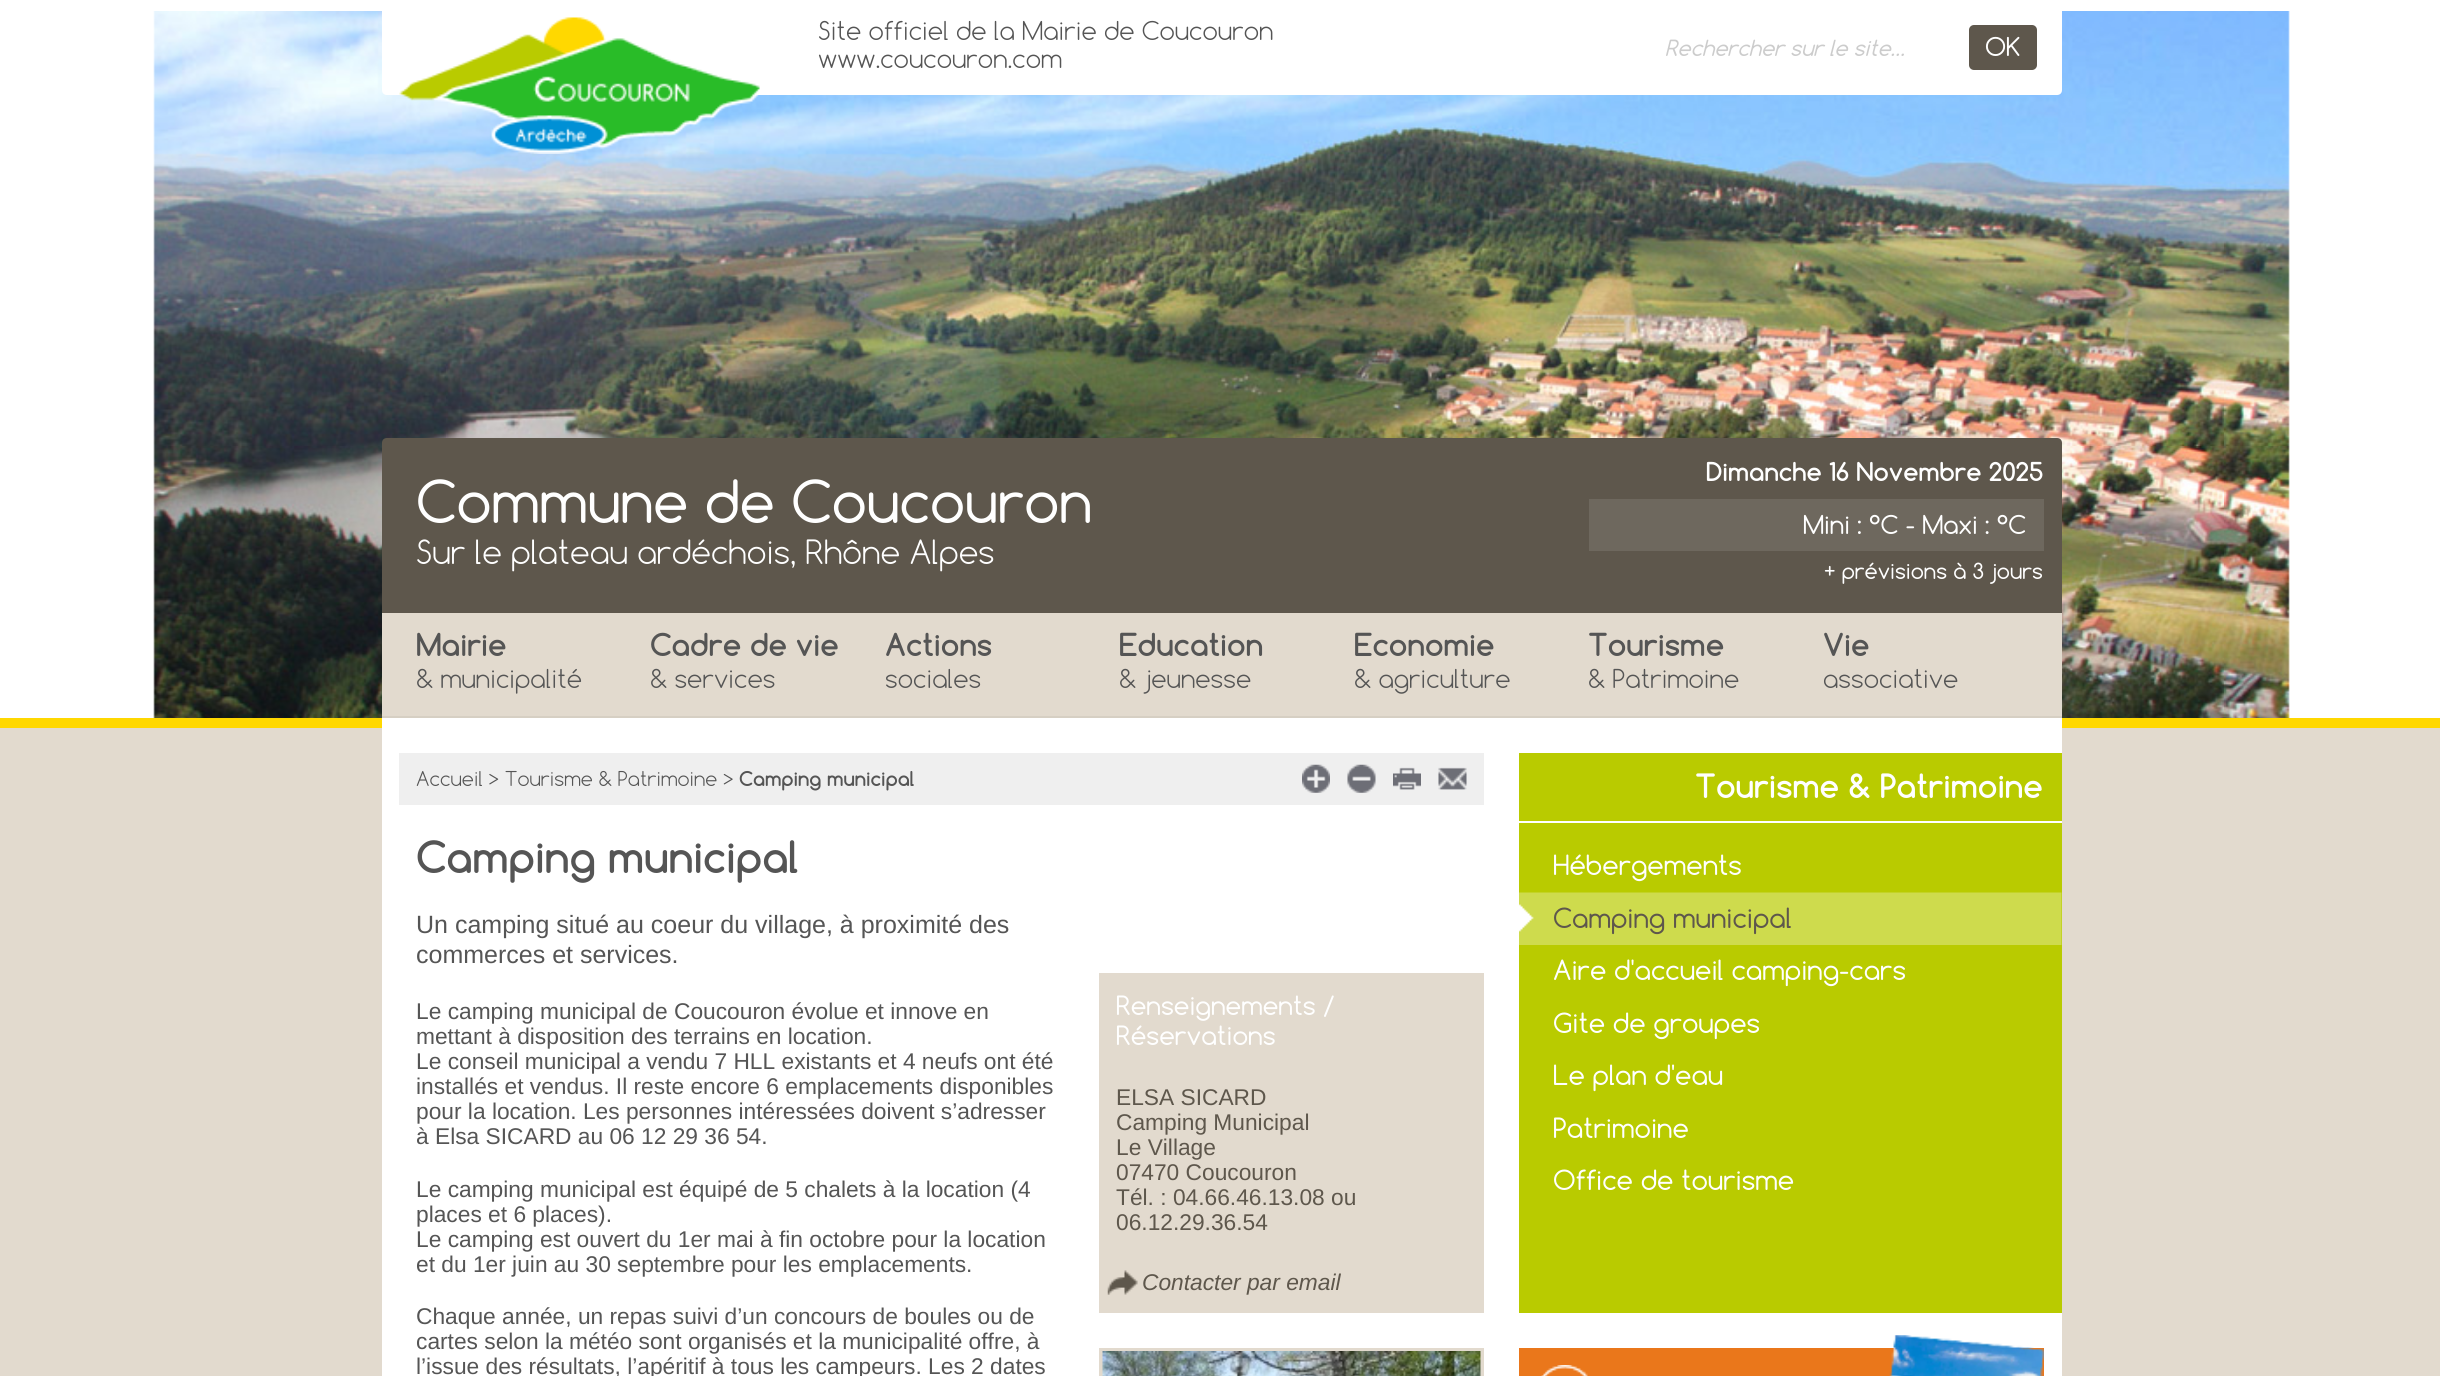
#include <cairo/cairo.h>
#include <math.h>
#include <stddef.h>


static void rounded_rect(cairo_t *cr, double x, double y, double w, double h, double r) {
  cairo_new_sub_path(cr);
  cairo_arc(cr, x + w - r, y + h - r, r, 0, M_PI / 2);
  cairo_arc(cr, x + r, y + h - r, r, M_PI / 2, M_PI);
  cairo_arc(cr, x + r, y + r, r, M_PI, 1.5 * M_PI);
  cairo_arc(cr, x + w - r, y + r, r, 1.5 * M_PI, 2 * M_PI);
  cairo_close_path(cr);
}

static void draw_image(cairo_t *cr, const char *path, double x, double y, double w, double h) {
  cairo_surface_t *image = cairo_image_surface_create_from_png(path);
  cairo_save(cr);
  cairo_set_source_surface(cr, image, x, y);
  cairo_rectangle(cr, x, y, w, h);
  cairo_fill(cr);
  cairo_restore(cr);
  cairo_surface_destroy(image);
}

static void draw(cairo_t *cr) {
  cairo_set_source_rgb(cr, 226 / 255.0, 218 / 255.0, 206 / 255.0);
  cairo_paint(cr);
  cairo_set_source_rgb(cr, 1, 1, 1);
  cairo_rectangle(cr, 0, 0, 2440, 718);
  cairo_fill(cr);
  draw_image(cr, "images/1.png", 153, 11, 2137, 707);
  cairo_set_source_rgb(cr, 1, 216 / 255.0, 0);
  cairo_rectangle(cr, 0, 718, 2440, 10);
  cairo_fill(cr);
  cairo_set_source_rgb(cr, 1, 1, 1);
  cairo_new_path(cr);
  cairo_move_to(cr, 382, 0);
  cairo_line_to(cr, 2062, 0);
  cairo_line_to(cr, 2062, 90);
  cairo_curve_to(cr, 2062, 93, 2060, 95, 2057, 95);
  cairo_line_to(cr, 387, 95);
  cairo_curve_to(cr, 384, 95, 382, 93, 382, 90);
  cairo_close_path(cr);
  cairo_fill(cr);
  draw_image(cr, "images/2.png", 399, 17, 361, 137);
  cairo_set_source_rgb(cr, 94 / 255.0, 87 / 255.0, 76 / 255.0);
  rounded_rect(cr, 1969, 25, 68, 45, 5);
  cairo_fill(cr);
  cairo_new_path(cr);
  cairo_move_to(cr, 387, 438);
  cairo_line_to(cr, 2057, 438);
  cairo_curve_to(cr, 2060, 438, 2062, 440, 2062, 443);
  cairo_line_to(cr, 2062, 613);
  cairo_line_to(cr, 382, 613);
  cairo_line_to(cr, 382, 443);
  cairo_curve_to(cr, 382, 440, 384, 438, 387, 438);
  cairo_close_path(cr);
  cairo_fill(cr);
  cairo_set_source_rgb(cr, 110 / 255.0, 104 / 255.0, 94 / 255.0);
  cairo_rectangle(cr, 1589, 499, 455, 52);
  cairo_fill(cr);
  cairo_set_source_rgb(cr, 226 / 255.0, 218 / 255.0, 206 / 255.0);
  cairo_rectangle(cr, 382, 613, 1680, 103);
  cairo_fill(cr);
  cairo_set_source_rgb(cr, 214 / 255.0, 207 / 255.0, 195 / 255.0);
  cairo_rectangle(cr, 382, 716, 1680, 2);
  cairo_fill(cr);
  cairo_set_source_rgb(cr, 1, 1, 1);
  cairo_rectangle(cr, 382, 718, 1680, 658);
  cairo_fill(cr);
  cairo_set_source_rgb(cr, 239 / 255.0, 239 / 255.0, 239 / 255.0);
  cairo_rectangle(cr, 399, 753, 1085, 52);
  cairo_fill(cr);
  draw_image(cr, "images/3.png", 1302, 764, 28, 29);
  draw_image(cr, "images/4.png", 1347, 764, 29, 29);
  draw_image(cr, "images/5.png", 1393, 767, 28, 23);
  draw_image(cr, "images/6.png", 1438, 767, 29, 23);
  cairo_set_source_rgb(cr, 226 / 255.0, 218 / 255.0, 206 / 255.0);
  cairo_rectangle(cr, 1099, 973, 385, 340);
  cairo_fill(cr);
  draw_image(cr, "images/7.png", 1107, 1270, 31, 25);
  cairo_rectangle(cr, 1101, 1350, 381, 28);
  cairo_set_line_width(cr, 4);
  cairo_stroke(cr);
  draw_image(cr, "images/8.png", 1102, 1351, 379, 25);
  cairo_set_source_rgb(cr, 185 / 255.0, 203 / 255.0, 0);
  cairo_rectangle(cr, 1519, 753, 543, 68);
  cairo_fill(cr);
  cairo_rectangle(cr, 1519, 823, 543, 490);
  cairo_fill(cr);
  draw_image(cr, "images/9.png", 1519, 892, 543, 53);
  cairo_set_source_rgb(cr, 234 / 255.0, 119 / 255.0, 27 / 255.0);
  cairo_rectangle(cr, 1519, 1348, 525, 28);
  cairo_fill(cr);
  draw_image(cr, "images/10.png", 1541, 1365, 47, 11);
  draw_image(cr, "images/11.png", 1889, 1335, 155, 41);
  cairo_select_font_face(cr, "Comfortaa Light", CAIRO_FONT_SLANT_NORMAL, CAIRO_FONT_WEIGHT_NORMAL);
  cairo_set_font_size(cr, 24.5);
  cairo_set_source_rgb(cr, 85 / 255.0, 85 / 255.0, 85 / 255.0);
  cairo_move_to(cr, 818, 40);
  cairo_show_text(cr, "Site officiel de la Mairie de Coucouron");
  cairo_move_to(cr, 818, 68);
  cairo_show_text(cr, "www.coucouron.com");
  cairo_select_font_face(cr, "Comfortaa", CAIRO_FONT_SLANT_ITALIC, CAIRO_FONT_WEIGHT_NORMAL);
  cairo_set_font_size(cr, 21);
  cairo_set_source_rgb(cr, 204 / 255.0, 204 / 255.0, 204 / 255.0);
  cairo_move_to(cr, 1665, 56);
  cairo_show_text(cr, "Rechercher sur le site…");
  cairo_select_font_face(cr, "Comfortaa", CAIRO_FONT_SLANT_NORMAL, CAIRO_FONT_WEIGHT_NORMAL);
  cairo_set_font_size(cr, 24.5);
  cairo_set_source_rgb(cr, 1, 1, 1);
  cairo_move_to(cr, 1985, 56);
  cairo_show_text(cr, "OK");
  cairo_set_font_size(cr, 56);
  cairo_move_to(cr, 416, 523);
  cairo_show_text(cr, "Commune de Coucouron");
  cairo_select_font_face(cr, "Comfortaa Light", CAIRO_FONT_SLANT_NORMAL, CAIRO_FONT_WEIGHT_NORMAL);
  cairo_set_font_size(cr, 31.5);
  cairo_move_to(cr, 416, 564);
  cairo_show_text(cr, "Sur le plateau ardéchois, Rhône Alpes");
  cairo_select_font_face(cr, "Comfortaa", CAIRO_FONT_SLANT_NORMAL, CAIRO_FONT_WEIGHT_BOLD);
  cairo_set_font_size(cr, 24.5);
  cairo_move_to(cr, 1706, 481);
  cairo_show_text(cr, "Dimanche 16 Novembre 2025");
  cairo_select_font_face(cr, "Comfortaa", CAIRO_FONT_SLANT_NORMAL, CAIRO_FONT_WEIGHT_NORMAL);
  cairo_move_to(cr, 1803, 534);
  cairo_show_text(cr, "Mini : °C - Maxi : °C");
  cairo_set_font_size(cr, 21);
  cairo_move_to(cr, 1824, 579);
  cairo_show_text(cr, "+ prévisions à 3 jours");
  cairo_select_font_face(cr, "Comfortaa", CAIRO_FONT_SLANT_NORMAL, CAIRO_FONT_WEIGHT_BOLD);
  cairo_set_font_size(cr, 29.75);
  cairo_set_source_rgb(cr, 85 / 255.0, 85 / 255.0, 85 / 255.0);
  cairo_move_to(cr, 416, 656);
  cairo_show_text(cr, "Mairie");
  cairo_select_font_face(cr, "Comfortaa Light", CAIRO_FONT_SLANT_NORMAL, CAIRO_FONT_WEIGHT_NORMAL);
  cairo_set_font_size(cr, 24.5);
  cairo_move_to(cr, 416, 688);
  cairo_show_text(cr, "& municipalité");
  cairo_select_font_face(cr, "Comfortaa", CAIRO_FONT_SLANT_NORMAL, CAIRO_FONT_WEIGHT_BOLD);
  cairo_set_font_size(cr, 29.75);
  cairo_move_to(cr, 650, 656);
  cairo_show_text(cr, "Cadre de vie");
  cairo_select_font_face(cr, "Comfortaa Light", CAIRO_FONT_SLANT_NORMAL, CAIRO_FONT_WEIGHT_NORMAL);
  cairo_set_font_size(cr, 24.5);
  cairo_move_to(cr, 650, 688);
  cairo_show_text(cr, "& services");
  cairo_select_font_face(cr, "Comfortaa", CAIRO_FONT_SLANT_NORMAL, CAIRO_FONT_WEIGHT_BOLD);
  cairo_set_font_size(cr, 29.75);
  cairo_move_to(cr, 885, 656);
  cairo_show_text(cr, "Actions");
  cairo_select_font_face(cr, "Comfortaa Light", CAIRO_FONT_SLANT_NORMAL, CAIRO_FONT_WEIGHT_NORMAL);
  cairo_set_font_size(cr, 24.5);
  cairo_move_to(cr, 885, 688);
  cairo_show_text(cr, "sociales");
  cairo_select_font_face(cr, "Comfortaa", CAIRO_FONT_SLANT_NORMAL, CAIRO_FONT_WEIGHT_BOLD);
  cairo_set_font_size(cr, 29.75);
  cairo_move_to(cr, 1119, 656);
  cairo_show_text(cr, "Education");
  cairo_select_font_face(cr, "Comfortaa Light", CAIRO_FONT_SLANT_NORMAL, CAIRO_FONT_WEIGHT_NORMAL);
  cairo_set_font_size(cr, 24.5);
  cairo_move_to(cr, 1119, 688);
  cairo_show_text(cr, "& jeunesse");
  cairo_select_font_face(cr, "Comfortaa", CAIRO_FONT_SLANT_NORMAL, CAIRO_FONT_WEIGHT_BOLD);
  cairo_set_font_size(cr, 29.75);
  cairo_move_to(cr, 1354, 656);
  cairo_show_text(cr, "Economie");
  cairo_select_font_face(cr, "Comfortaa Light", CAIRO_FONT_SLANT_NORMAL, CAIRO_FONT_WEIGHT_NORMAL);
  cairo_set_font_size(cr, 24.5);
  cairo_move_to(cr, 1354, 688);
  cairo_show_text(cr, "& agriculture");
  cairo_select_font_face(cr, "Comfortaa", CAIRO_FONT_SLANT_NORMAL, CAIRO_FONT_WEIGHT_BOLD);
  cairo_set_font_size(cr, 29.75);
  cairo_move_to(cr, 1588, 656);
  cairo_show_text(cr, "Tourisme");
  cairo_select_font_face(cr, "Comfortaa Light", CAIRO_FONT_SLANT_NORMAL, CAIRO_FONT_WEIGHT_NORMAL);
  cairo_set_font_size(cr, 24.5);
  cairo_move_to(cr, 1588, 688);
  cairo_show_text(cr, "& Patrimoine");
  cairo_select_font_face(cr, "Comfortaa", CAIRO_FONT_SLANT_NORMAL, CAIRO_FONT_WEIGHT_BOLD);
  cairo_set_font_size(cr, 29.75);
  cairo_move_to(cr, 1823, 656);
  cairo_show_text(cr, "Vie");
  cairo_select_font_face(cr, "Comfortaa Light", CAIRO_FONT_SLANT_NORMAL, CAIRO_FONT_WEIGHT_NORMAL);
  cairo_set_font_size(cr, 24.5);
  cairo_move_to(cr, 1823, 688);
  cairo_show_text(cr, "associative");
  cairo_set_font_size(cr, 19.25);
  cairo_move_to(cr, 416, 786);
  cairo_show_text(cr, "Accueil > Tourisme & Patrimoine >");
  cairo_select_font_face(cr, "Comfortaa", CAIRO_FONT_SLANT_NORMAL, CAIRO_FONT_WEIGHT_BOLD);
  cairo_move_to(cr, 739, 786);
  cairo_show_text(cr, "Camping municipal");
  cairo_set_font_size(cr, 42);
  cairo_move_to(cr, 416, 873);
  cairo_show_text(cr, "Camping municipal");
  cairo_select_font_face(cr, "Liberation Sans", CAIRO_FONT_SLANT_NORMAL, CAIRO_FONT_WEIGHT_NORMAL);
  cairo_set_font_size(cr, 25);
  cairo_move_to(cr, 416, 933);
  cairo_show_text(cr, "Un camping situé au coeur du village, à proximité des");
  cairo_move_to(cr, 416, 963);
  cairo_show_text(cr, "commerces et services.");
  cairo_set_font_size(cr, 22.75);
  cairo_move_to(cr, 416, 1019);
  cairo_show_text(cr, "Le camping municipal de Coucouron évolue et innove en");
  cairo_move_to(cr, 416, 1044);
  cairo_show_text(cr, "mettant à disposition des terrains en location.");
  cairo_move_to(cr, 416, 1069);
  cairo_show_text(cr, "Le conseil municipal a vendu 7 HLL existants et 4 neufs ont été");
  cairo_move_to(cr, 416, 1094);
  cairo_show_text(cr, "installés et vendus. Il reste encore 6 emplacements disponibles");
  cairo_move_to(cr, 416, 1119);
  cairo_show_text(cr, "pour la location. Les personnes intéressées doivent s’adresser");
  cairo_move_to(cr, 416, 1144);
  cairo_show_text(cr, "à Elsa SICARD au 06 12 29 36 54.");
  cairo_move_to(cr, 416, 1197);
  cairo_show_text(cr, "Le camping municipal est équipé de 5 chalets à la location (4");
  cairo_move_to(cr, 416, 1222);
  cairo_show_text(cr, "places et 6 places).");
  cairo_move_to(cr, 416, 1247);
  cairo_show_text(cr, "Le camping est ouvert du 1er mai à fin octobre pour la location");
  cairo_move_to(cr, 416, 1272);
  cairo_show_text(cr, "et du 1er juin au 30 septembre pour les emplacements.");
  cairo_move_to(cr, 416, 1324);
  cairo_show_text(cr, "Chaque année, un repas suivi d’un concours de boules ou de");
  cairo_move_to(cr, 416, 1349);
  cairo_show_text(cr, "cartes selon la météo sont organisés et la municipalité offre, à");
  cairo_move_to(cr, 416, 1374);
  cairo_show_text(cr, "l’issue des résultats, l’apéritif à tous les campeurs. Les 2 dates");
  cairo_select_font_face(cr, "Comfortaa", CAIRO_FONT_SLANT_NORMAL, CAIRO_FONT_WEIGHT_NORMAL);
  cairo_set_font_size(cr, 25);
  cairo_set_source_rgb(cr, 1, 1, 1);
  cairo_move_to(cr, 1116, 1015);
  cairo_show_text(cr, "Renseignements /");
  cairo_move_to(cr, 1116, 1045);
  cairo_show_text(cr, "Réservations");
  cairo_select_font_face(cr, "Liberation Sans", CAIRO_FONT_SLANT_NORMAL, CAIRO_FONT_WEIGHT_NORMAL);
  cairo_set_font_size(cr, 22.75);
  cairo_set_source_rgb(cr, 94 / 255.0, 87 / 255.0, 76 / 255.0);
  cairo_move_to(cr, 1116, 1105);
  cairo_show_text(cr, "ELSA SICARD");
  cairo_move_to(cr, 1116, 1130);
  cairo_show_text(cr, "Camping Municipal");
  cairo_move_to(cr, 1116, 1155);
  cairo_show_text(cr, "Le Village");
  cairo_move_to(cr, 1116, 1180);
  cairo_show_text(cr, "07470 Coucouron");
  cairo_move_to(cr, 1116, 1205);
  cairo_show_text(cr, "Tél. : 04.66.46.13.08 ou");
  cairo_move_to(cr, 1116, 1230);
  cairo_show_text(cr, "06.12.29.36.54");
  cairo_select_font_face(cr, "Liberation Sans", CAIRO_FONT_SLANT_ITALIC, CAIRO_FONT_WEIGHT_NORMAL);
  cairo_move_to(cr, 1142, 1290);
  cairo_show_text(cr, "Contacter par email");
  cairo_select_font_face(cr, "Comfortaa", CAIRO_FONT_SLANT_NORMAL, CAIRO_FONT_WEIGHT_BOLD);
  cairo_set_font_size(cr, 31.5);
  cairo_set_source_rgb(cr, 1, 1, 1);
  cairo_move_to(cr, 1695, 798);
  cairo_show_text(cr, "Tourisme & Patrimoine");
  cairo_select_font_face(cr, "Comfortaa", CAIRO_FONT_SLANT_NORMAL, CAIRO_FONT_WEIGHT_NORMAL);
  cairo_set_font_size(cr, 26.25);
  cairo_move_to(cr, 1553, 875);
  cairo_show_text(cr, "Hébergements");
  cairo_set_source_rgb(cr, 94 / 255.0, 87 / 255.0, 76 / 255.0);
  cairo_move_to(cr, 1553, 928);
  cairo_show_text(cr, "Camping municipal");
  cairo_set_source_rgb(cr, 1, 1, 1);
  cairo_move_to(cr, 1553, 980);
  cairo_show_text(cr, "Aire d'accueil camping-cars");
  cairo_move_to(cr, 1553, 1033);
  cairo_show_text(cr, "Gite de groupes");
  cairo_move_to(cr, 1553, 1085);
  cairo_show_text(cr, "Le plan d'eau");
  cairo_move_to(cr, 1553, 1138);
  cairo_show_text(cr, "Patrimoine");
  cairo_move_to(cr, 1553, 1190);
  cairo_show_text(cr, "Office de tourisme");
}

int main(void) {
  cairo_surface_t *surface = cairo_image_surface_create(CAIRO_FORMAT_RGB24, 2440, 1376);
  cairo_t *cr = cairo_create(surface);
  cairo_font_options_t *options = cairo_font_options_create();
  cairo_font_options_set_hint_metrics(options, CAIRO_HINT_METRICS_OFF);
  cairo_font_options_set_hint_style(options, CAIRO_HINT_STYLE_NONE);
  cairo_set_font_options(cr, options);
  cairo_set_miter_limit(cr, 4);
  draw(cr);
  cairo_surface_write_to_png(surface, "out.png");
  cairo_font_options_destroy(options);
  cairo_destroy(cr);
  cairo_surface_destroy(surface);
  return 0;
}
